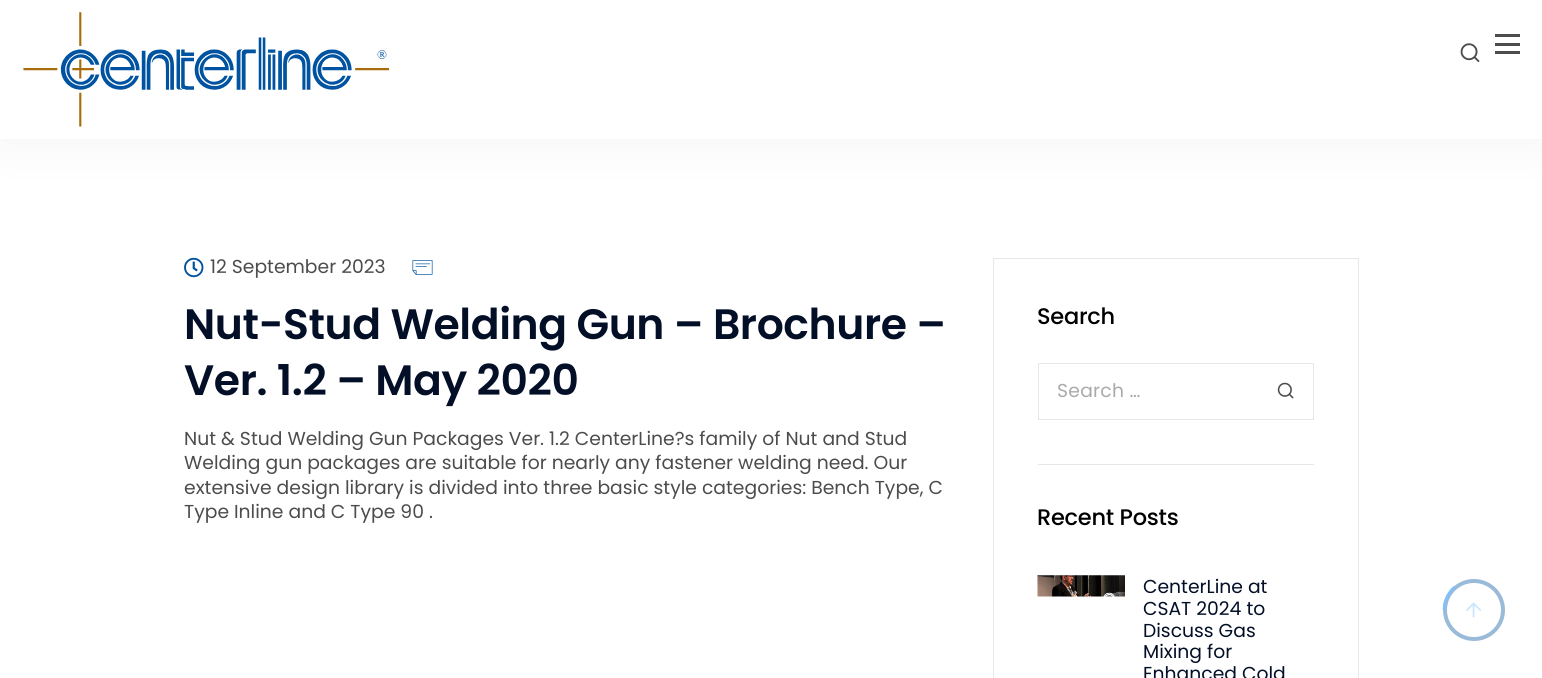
#include <cairo/cairo.h>
#include <math.h>
#include <stddef.h>


static void draw_spaced(cairo_t *cr, double x, double y, const char *s, double letter, double word) {
  cairo_move_to(cr, x, y);
  while (*s) {
    char ch[5] = {0};
    int n = 0;
    do ch[n++] = *s++; while ((*s & 0xC0) == 0x80);
    cairo_show_text(cr, ch);
    cairo_rel_move_to(cr, letter + word * (*ch == ' '), 0);
  }
}

static void rounded_rect(cairo_t *cr, double x, double y, double w, double h, double r) {
  cairo_new_sub_path(cr);
  cairo_arc(cr, x + w - r, y + h - r, r, 0, M_PI / 2);
  cairo_arc(cr, x + r, y + h - r, r, M_PI / 2, M_PI);
  cairo_arc(cr, x + r, y + r, r, M_PI, 1.5 * M_PI);
  cairo_arc(cr, x + w - r, y + r, r, 1.5 * M_PI, 2 * M_PI);
  cairo_close_path(cr);
}

static void draw_shadow(cairo_t *cr, double x, double y, double w, double h, double r, double blur, double alpha) {
  cairo_push_group_with_content(cr, CAIRO_CONTENT_ALPHA);
  cairo_set_operator(cr, CAIRO_OPERATOR_SOURCE);
  for (int i = 15; i >= -15 && fmin(w, h) + blur * i / 3 > 0; i -= 2) {
    double e = blur * i / 6;
    cairo_set_source_rgba(cr, 0, 0, 0, alpha * erfc((i - 1) / 8.5) / 2);
    rounded_rect(cr, x - e, y - e, w + 2 * e, h + 2 * e, fmax(0, fmin(r + e + blur * .6, fmin(w, h) / 2 + e)));
    cairo_fill(cr);
  }
  cairo_pattern_t *soft = cairo_pop_group(cr);
  cairo_mask(cr, soft);
  cairo_pattern_destroy(soft);
}

static void draw_image(cairo_t *cr, const char *path, double x, double y, double w, double h) {
  cairo_surface_t *image = cairo_image_surface_create_from_png(path);
  cairo_save(cr);
  cairo_set_source_surface(cr, image, x, y);
  cairo_rectangle(cr, x, y, w, h);
  cairo_fill(cr);
  cairo_restore(cr);
  cairo_surface_destroy(image);
}

static void draw(cairo_t *cr) {
  cairo_set_source_rgb(cr, 1, 1, 1);
  cairo_paint(cr);
  cairo_set_source_rgb(cr, 15 / 255.0, 15 / 255.0, 15 / 255.0);
  draw_shadow(cr, 0, 3, 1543, 138, 0, 25, 0.05);
  cairo_set_source_rgb(cr, 1, 1, 1);
  cairo_rectangle(cr, 0, 0, 1542, 139);
  cairo_fill(cr);
  draw_image(cr, "images/1.png", 23, 12, 367, 115);
  draw_image(cr, "images/2.png", 1460, 43, 20, 19);
  cairo_set_source_rgb(cr, 76 / 255.0, 76 / 255.0, 76 / 255.0);
  cairo_rectangle(cr, 1495, 51, 25, 3);
  cairo_fill(cr);
  cairo_rectangle(cr, 1495, 34, 25, 3);
  cairo_fill(cr);
  cairo_rectangle(cr, 1495, 43, 25, 3);
  cairo_fill(cr);
  draw_image(cr, "images/3.png", 184, 257, 20, 21);
  draw_image(cr, "images/4.png", 412, 260, 21, 15);
  cairo_rectangle(cr, 993.5, 258.5, 365, 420);
  cairo_set_source_rgb(cr, 231 / 255.0, 231 / 255.0, 231 / 255.0);
  cairo_set_line_width(cr, 1);
  cairo_stroke(cr);
  cairo_rectangle(cr, 1038, 464, 276, 1);
  cairo_fill(cr);
  cairo_rectangle(cr, 1038.5, 363.5, 275, 56);
  cairo_stroke(cr);
  draw_image(cr, "images/5.png", 1277, 382, 17, 17);
  draw_image(cr, "images/6.png", 1037, 575, 88, 22);
  cairo_arc(cr, 1474, 610, 29, 0, 2 * M_PI);
  cairo_set_source_rgb(cr, 153 / 255.0, 186 / 255.0, 217 / 255.0);
  cairo_set_line_width(cr, 4);
  cairo_stroke(cr);
  cairo_new_path(cr);
  cairo_move_to(cr, 1444, 610);
  cairo_curve_to(cr, 1444, 600.5, 1448, 592.5, 1454.5, 587);
  cairo_set_source_rgb(cr, 127 / 255.0, 193 / 255.0, 1);
  cairo_set_line_width(cr, 2.5);
  cairo_stroke(cr);
  draw_image(cr, "images/7.png", 1466, 602, 15, 16);
  cairo_select_font_face(cr, "Poppins", CAIRO_FONT_SLANT_NORMAL, CAIRO_FONT_WEIGHT_NORMAL);
  cairo_set_font_size(cr, 18.75);
  cairo_set_source_rgb(cr, 76 / 255.0, 76 / 255.0, 76 / 255.0);
  cairo_move_to(cr, 210, 273);
  cairo_show_text(cr, "12 September 2023");
  cairo_select_font_face(cr, "Poppins SemiBold", CAIRO_FONT_SLANT_NORMAL, CAIRO_FONT_WEIGHT_NORMAL);
  cairo_set_font_size(cr, 42.5);
  cairo_set_source_rgb(cr, 3 / 255.0, 15 / 255.0, 39 / 255.0);
  draw_spaced(cr, 184, 339, "Nut-Stud Welding Gun – Brochure –", -0.4, 0);
  draw_spaced(cr, 184, 395, "Ver. 1.2 – May 2020", -0.4, 0);
  cairo_select_font_face(cr, "Poppins", CAIRO_FONT_SLANT_NORMAL, CAIRO_FONT_WEIGHT_NORMAL);
  cairo_set_font_size(cr, 18.75);
  cairo_set_source_rgb(cr, 76 / 255.0, 76 / 255.0, 76 / 255.0);
  cairo_move_to(cr, 184, 445);
  cairo_show_text(cr, "Nut & Stud Welding Gun Packages Ver. 1.2 CenterLine?s family of Nut and Stud");
  cairo_move_to(cr, 184, 469);
  cairo_show_text(cr, "Welding gun packages are suitable for nearly any fastener welding need. Our");
  cairo_move_to(cr, 184, 494);
  cairo_show_text(cr, "extensive design library is divided into three basic style categories: Bench Type, C");
  cairo_move_to(cr, 184, 518);
  cairo_show_text(cr, "Type Inline and C Type 90 .");
  cairo_select_font_face(cr, "Poppins Medium", CAIRO_FONT_SLANT_NORMAL, CAIRO_FONT_WEIGHT_NORMAL);
  cairo_set_font_size(cr, 22.5);
  cairo_set_source_rgb(cr, 0, 0, 0);
  draw_spaced(cr, 1037, 324, "Search", -0.25, 0);
  cairo_select_font_face(cr, "Poppins", CAIRO_FONT_SLANT_NORMAL, CAIRO_FONT_WEIGHT_NORMAL);
  cairo_set_font_size(cr, 18.75);
  cairo_set_source_rgb(cr, 170 / 255.0, 170 / 255.0, 170 / 255.0);
  draw_spaced(cr, 1057, 397, "Search …", 0.25, 0);
  cairo_select_font_face(cr, "Poppins Medium", CAIRO_FONT_SLANT_NORMAL, CAIRO_FONT_WEIGHT_NORMAL);
  cairo_set_font_size(cr, 22.5);
  cairo_set_source_rgb(cr, 0, 0, 0);
  draw_spaced(cr, 1037, 525, "Recent Posts", -0.25, 0);
  cairo_select_font_face(cr, "Poppins", CAIRO_FONT_SLANT_NORMAL, CAIRO_FONT_WEIGHT_NORMAL);
  cairo_set_font_size(cr, 18.75);
  cairo_set_source_rgb(cr, 3 / 255.0, 15 / 255.0, 39 / 255.0);
  cairo_move_to(cr, 1143, 593);
  cairo_show_text(cr, "CenterLine at");
  cairo_move_to(cr, 1143, 615);
  cairo_show_text(cr, "CSAT 2024 to");
  cairo_move_to(cr, 1143, 637);
  cairo_show_text(cr, "Discuss Gas");
  cairo_move_to(cr, 1143, 658);
  cairo_show_text(cr, "Mixing for");
  cairo_move_to(cr, 1143, 680);
  cairo_show_text(cr, "Enhanced Cold");
}

int main(void) {
  cairo_surface_t *surface = cairo_image_surface_create(CAIRO_FORMAT_RGB24, 1542, 678);
  cairo_t *cr = cairo_create(surface);
  cairo_font_options_t *options = cairo_font_options_create();
  cairo_font_options_set_hint_metrics(options, CAIRO_HINT_METRICS_OFF);
  cairo_font_options_set_hint_style(options, CAIRO_HINT_STYLE_NONE);
  cairo_set_font_options(cr, options);
  cairo_set_miter_limit(cr, 4);
  draw(cr);
  cairo_surface_write_to_png(surface, "out.png");
  cairo_font_options_destroy(options);
  cairo_destroy(cr);
  cairo_surface_destroy(surface);
  return 0;
}
